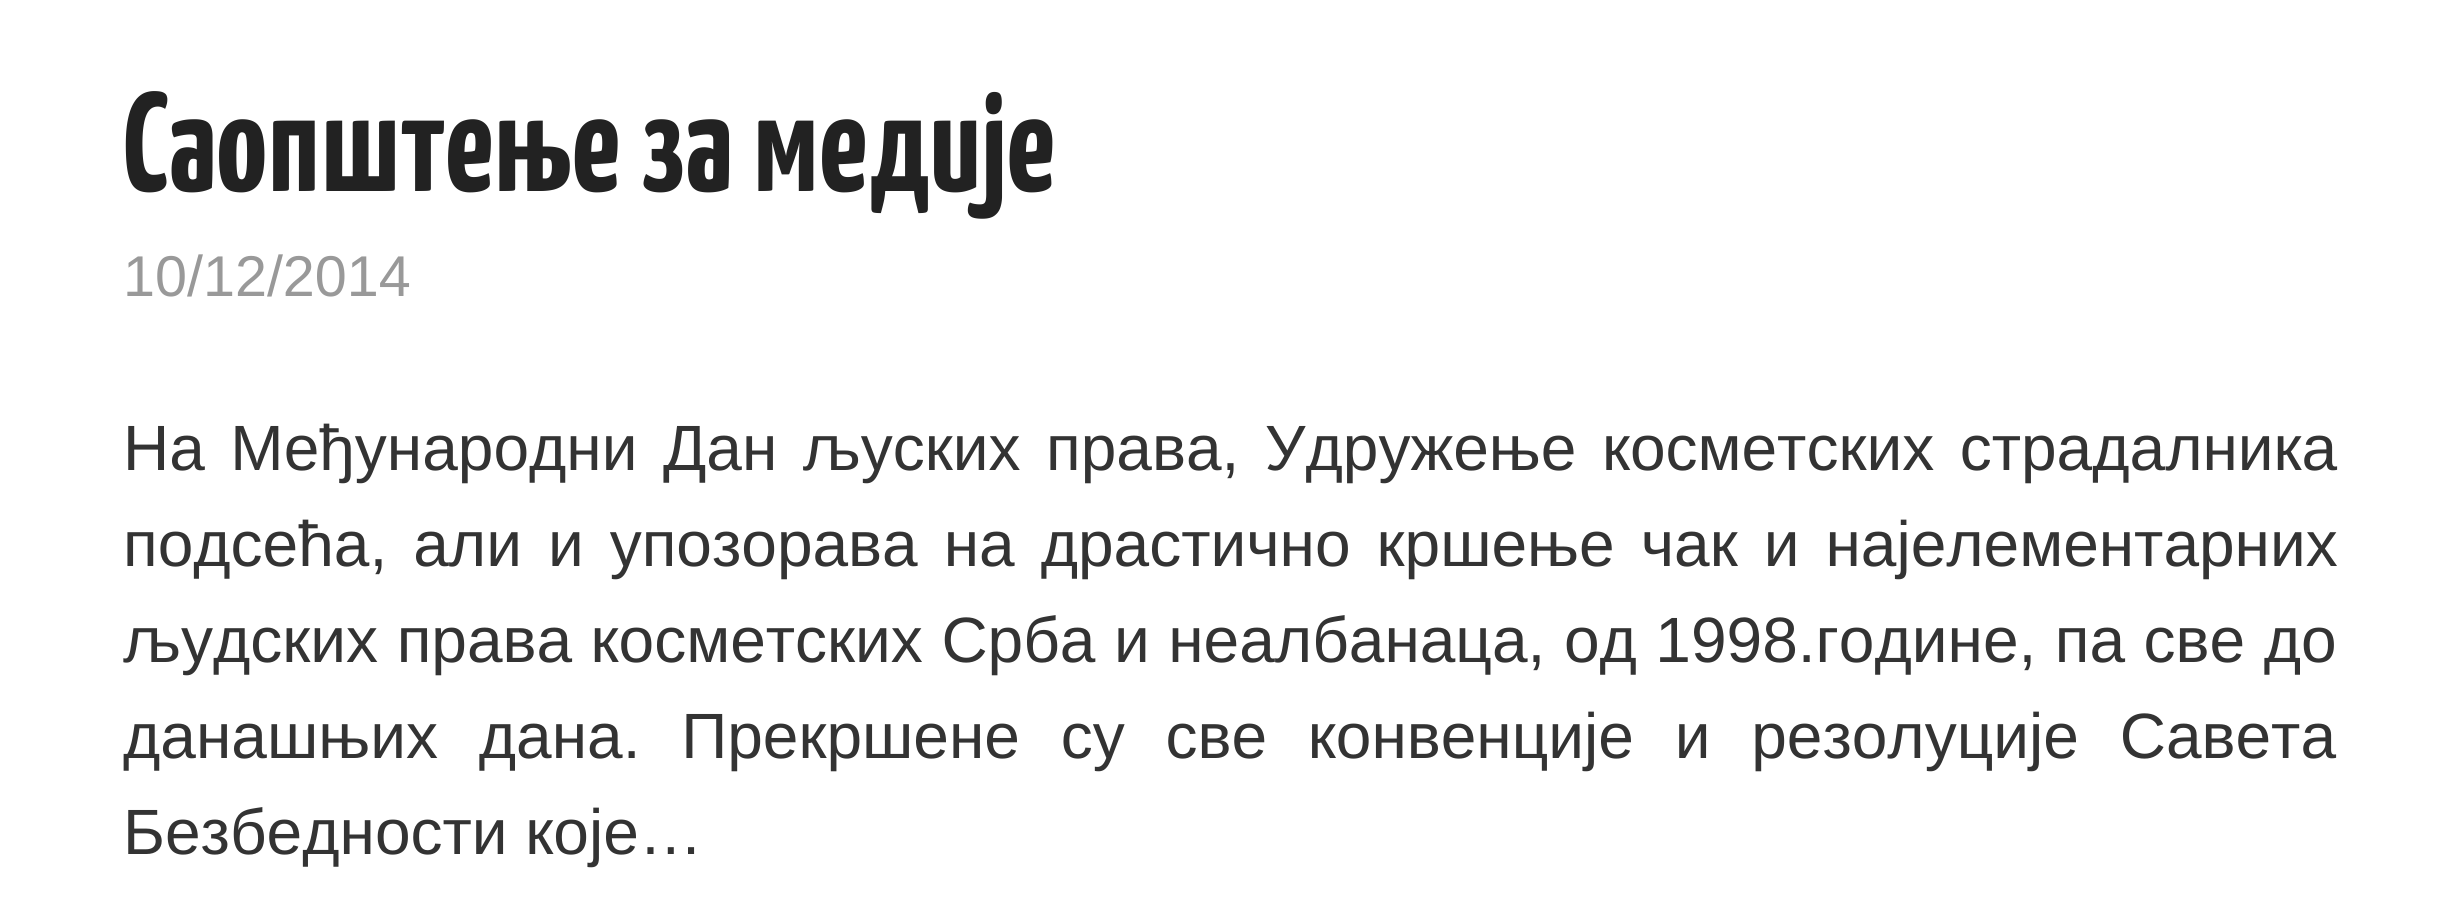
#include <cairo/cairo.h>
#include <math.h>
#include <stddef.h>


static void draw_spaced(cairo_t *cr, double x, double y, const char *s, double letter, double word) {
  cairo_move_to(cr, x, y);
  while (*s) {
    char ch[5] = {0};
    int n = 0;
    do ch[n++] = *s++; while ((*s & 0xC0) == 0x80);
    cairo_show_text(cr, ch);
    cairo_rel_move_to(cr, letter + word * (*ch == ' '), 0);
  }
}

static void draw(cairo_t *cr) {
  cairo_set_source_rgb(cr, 1, 1, 1);
  cairo_paint(cr);
  cairo_select_font_face(cr, "Yanone Kaffeesatz", CAIRO_FONT_SLANT_NORMAL, CAIRO_FONT_WEIGHT_BOLD);
  cairo_set_font_size(cr, 140.75);
  cairo_set_source_rgb(cr, 34 / 255.0, 34 / 255.0, 34 / 255.0);
  cairo_move_to(cr, 123, 191);
  cairo_show_text(cr, "Саопштење за медије");
  cairo_select_font_face(cr, "Liberation Sans", CAIRO_FONT_SLANT_NORMAL, CAIRO_FONT_WEIGHT_NORMAL);
  cairo_set_font_size(cr, 57.5);
  cairo_set_source_rgb(cr, 153 / 255.0, 153 / 255.0, 153 / 255.0);
  cairo_move_to(cr, 123, 296);
  cairo_show_text(cr, "10/12/2014");
  cairo_set_font_size(cr, 64);
  cairo_set_source_rgb(cr, 51 / 255.0, 51 / 255.0, 51 / 255.0);
  draw_spaced(cr, 123, 470, "На Међународни Дан љуских права, Удружење косметских страдалника", 0, 7.75);
  draw_spaced(cr, 123, 566, "подсећа, али и упозорава на драстично кршење чак и најелементарних", 0, 8.25);
  draw_spaced(cr, 123, 662, "људских права косметских Срба и неалбанаца, од 1998.године, па све до", 0, 0.75);
  draw_spaced(cr, 123, 758, "данашњих дана. Прекршене су све конвенције и резолуције Савета", 0, 23);
  cairo_move_to(cr, 123, 854);
  cairo_show_text(cr, "Безбедности које…");
}

int main(void) {
  cairo_surface_t *surface = cairo_image_surface_create(CAIRO_FORMAT_RGB24, 2457, 899);
  cairo_t *cr = cairo_create(surface);
  cairo_font_options_t *options = cairo_font_options_create();
  cairo_font_options_set_hint_metrics(options, CAIRO_HINT_METRICS_OFF);
  cairo_font_options_set_hint_style(options, CAIRO_HINT_STYLE_NONE);
  cairo_set_font_options(cr, options);
  cairo_set_miter_limit(cr, 4);
  draw(cr);
  cairo_surface_write_to_png(surface, "out.png");
  cairo_font_options_destroy(options);
  cairo_destroy(cr);
  cairo_surface_destroy(surface);
  return 0;
}
